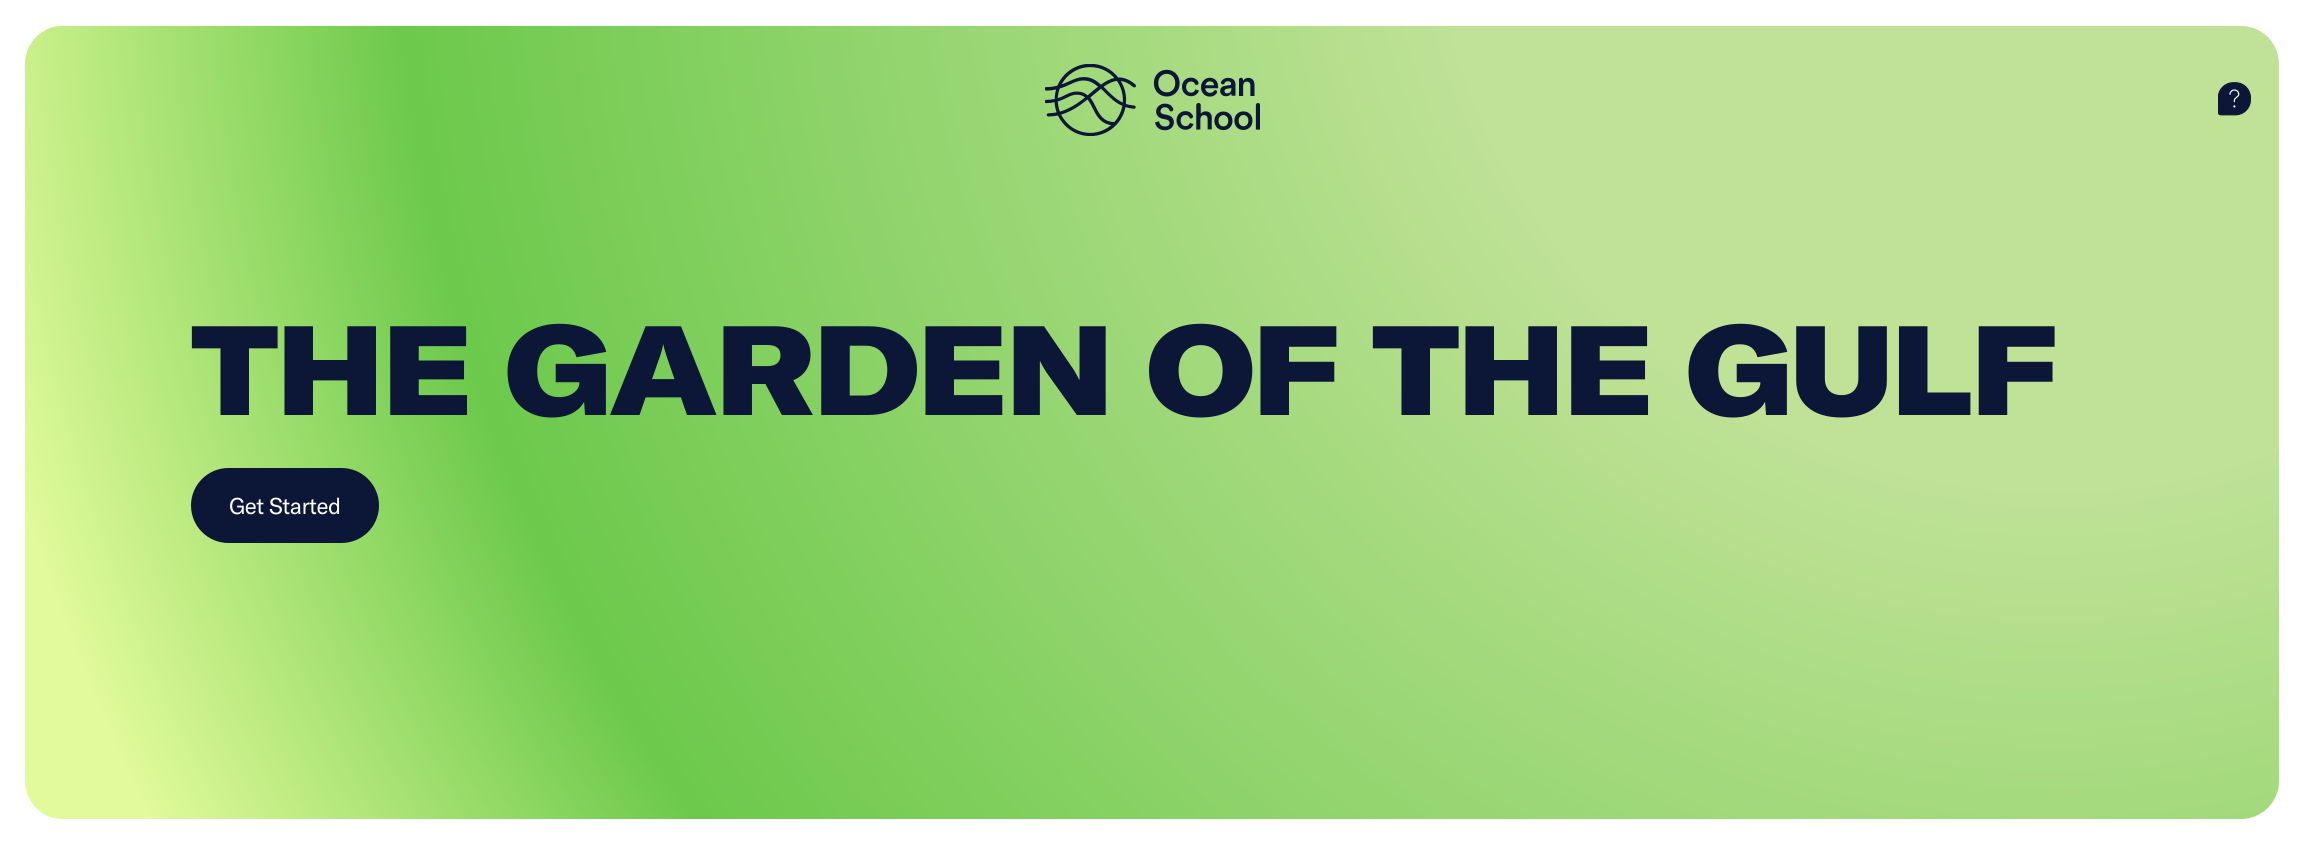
#include <cairo/cairo.h>
#include <math.h>
#include <stddef.h>


static void draw_spaced(cairo_t *cr, double x, double y, const char *s, double letter, double word) {
  cairo_move_to(cr, x, y);
  while (*s) {
    char ch[5] = {0};
    int n = 0;
    do ch[n++] = *s++; while ((*s & 0xC0) == 0x80);
    cairo_show_text(cr, ch);
    cairo_rel_move_to(cr, letter + word * (*ch == ' '), 0);
  }
}

static void rounded_rect(cairo_t *cr, double x, double y, double w, double h, double r) {
  cairo_new_sub_path(cr);
  cairo_arc(cr, x + w - r, y + h - r, r, 0, M_PI / 2);
  cairo_arc(cr, x + r, y + h - r, r, M_PI / 2, M_PI);
  cairo_arc(cr, x + r, y + r, r, M_PI, 1.5 * M_PI);
  cairo_arc(cr, x + w - r, y + r, r, 1.5 * M_PI, 2 * M_PI);
  cairo_close_path(cr);
}

static void draw_image(cairo_t *cr, const char *path, double x, double y, double w, double h) {
  cairo_surface_t *image = cairo_image_surface_create_from_png(path);
  cairo_save(cr);
  cairo_set_source_surface(cr, image, x, y);
  cairo_rectangle(cr, x, y, w, h);
  cairo_fill(cr);
  cairo_restore(cr);
  cairo_surface_destroy(image);
}

static void draw(cairo_t *cr) {
  cairo_pattern_t *gradient;
  cairo_set_source_rgb(cr, 1, 1, 1);
  cairo_paint(cr);
  gradient = cairo_pattern_create_radial(2053, -132, 0, 2053, -132, 2240);
  cairo_pattern_add_color_stop_rgba(gradient, 0.27, 192 / 255.0, 226 / 255.0, 151 / 255.0, 1);
  cairo_pattern_add_color_stop_rgba(gradient, 0.74, 108 / 255.0, 201 / 255.0, 75 / 255.0, 1);
  cairo_pattern_add_color_stop_rgba(gradient, 0.95, 225 / 255.0, 250 / 255.0, 155 / 255.0, 1);
  cairo_set_source(cr, gradient);
  cairo_pattern_destroy(gradient);
  cairo_new_path(cr);
  cairo_move_to(cr, 62, 819);
  cairo_line_to(cr, 2241, 819);
  cairo_curve_to(cr, 2262, 819, 2279, 802, 2279, 781);
  cairo_line_to(cr, 2279, 64);
  cairo_curve_to(cr, 2279, 43, 2262, 26, 2241, 26);
  cairo_line_to(cr, 62, 26);
  cairo_curve_to(cr, 42, 26, 25, 43, 25, 64);
  cairo_line_to(cr, 25, 781);
  cairo_curve_to(cr, 25, 802, 42, 819, 62, 819);
  cairo_close_path(cr);
  cairo_fill(cr);
  draw_image(cr, "images/1.png", 1045, 64, 215, 72);
  draw_image(cr, "images/2.png", 2218, 82, 33, 34);
  cairo_set_source_rgb(cr, 12 / 255.0, 22 / 255.0, 55 / 255.0);
  rounded_rect(cr, 191, 468, 188, 75, 37.5);
  cairo_fill(cr);
  cairo_select_font_face(cr, "GT America Black", CAIRO_FONT_SLANT_NORMAL, CAIRO_FONT_WEIGHT_NORMAL);
  cairo_set_font_size(cr, 125);
  draw_spaced(cr, 191, 415, "THE GARDEN OF THE GULF", -2.5, 0);
  cairo_select_font_face(cr, "GT America", CAIRO_FONT_SLANT_NORMAL, CAIRO_FONT_WEIGHT_NORMAL);
  cairo_set_font_size(cr, 22.5);
  cairo_set_source_rgb(cr, 1, 1, 1);
  draw_spaced(cr, 229, 514, "Get Started", -0.5, 0);
}

int main(void) {
  cairo_surface_t *surface = cairo_image_surface_create(CAIRO_FORMAT_RGB24, 2303, 845);
  cairo_t *cr = cairo_create(surface);
  cairo_font_options_t *options = cairo_font_options_create();
  cairo_font_options_set_hint_metrics(options, CAIRO_HINT_METRICS_OFF);
  cairo_font_options_set_hint_style(options, CAIRO_HINT_STYLE_NONE);
  cairo_set_font_options(cr, options);
  cairo_set_miter_limit(cr, 4);
  draw(cr);
  cairo_surface_write_to_png(surface, "out.png");
  cairo_font_options_destroy(options);
  cairo_destroy(cr);
  cairo_surface_destroy(surface);
  return 0;
}
